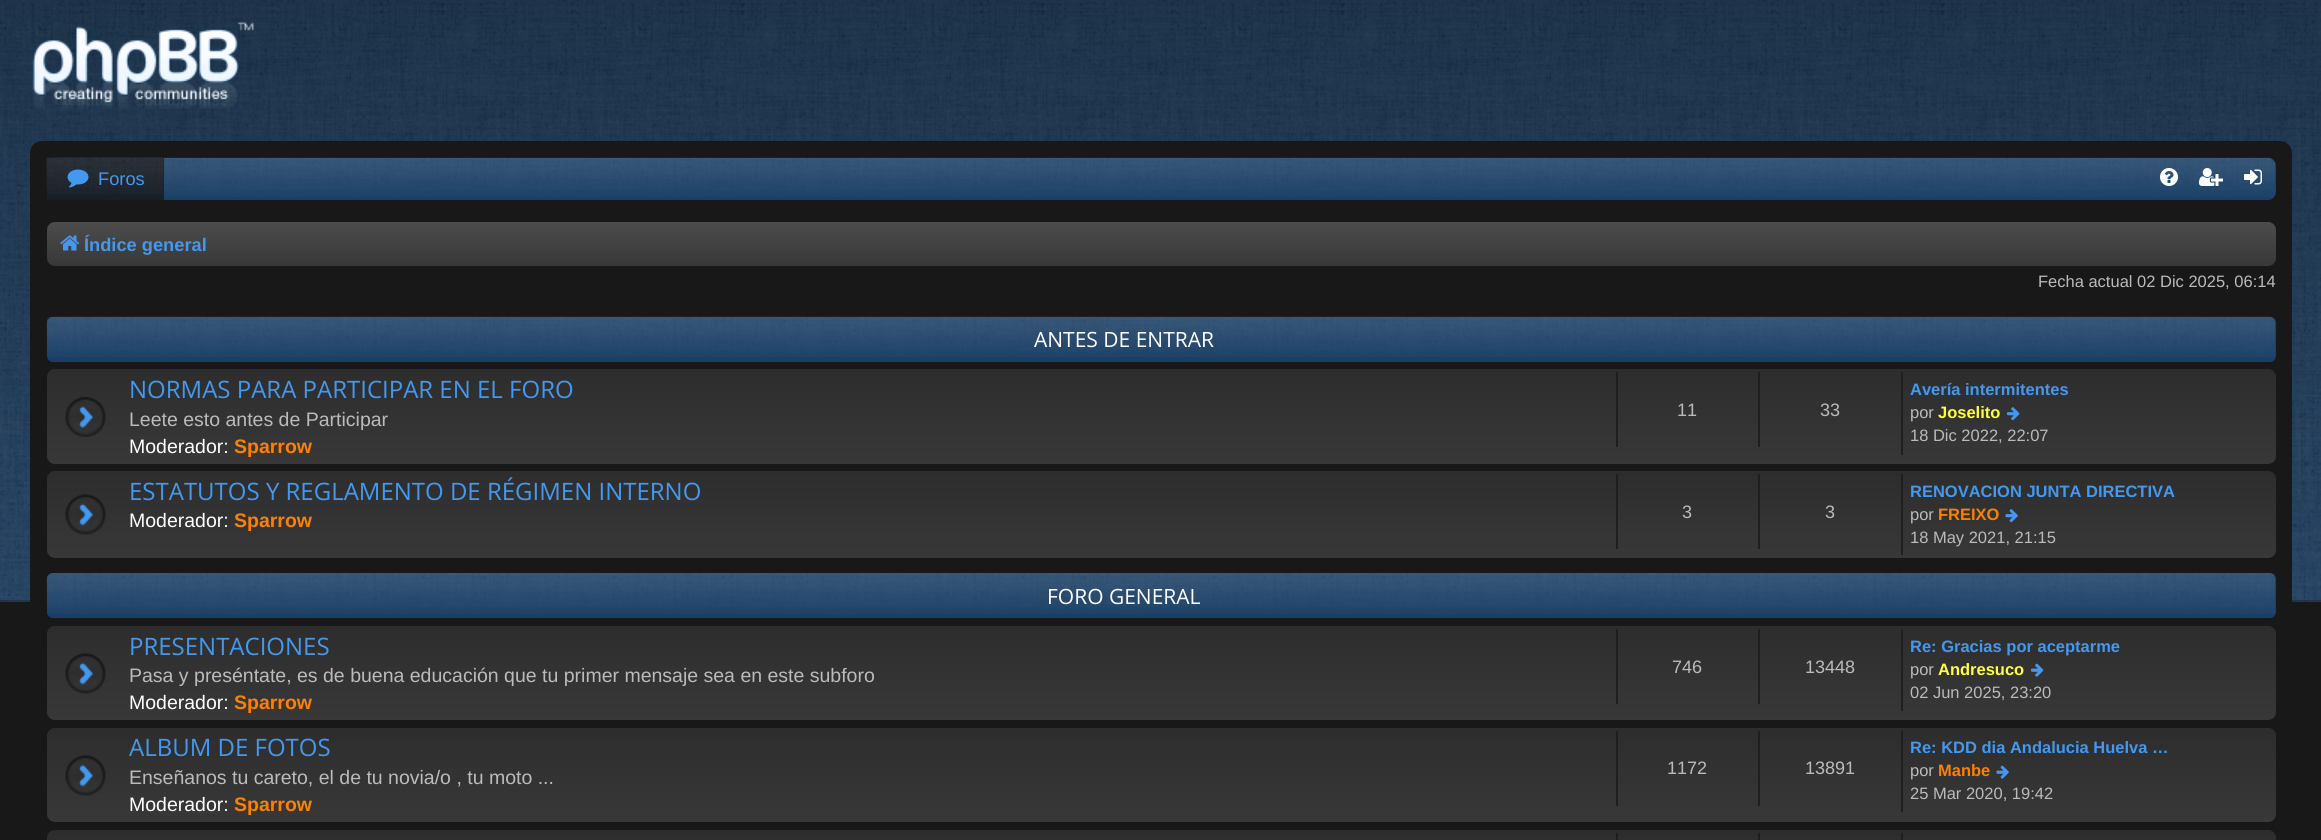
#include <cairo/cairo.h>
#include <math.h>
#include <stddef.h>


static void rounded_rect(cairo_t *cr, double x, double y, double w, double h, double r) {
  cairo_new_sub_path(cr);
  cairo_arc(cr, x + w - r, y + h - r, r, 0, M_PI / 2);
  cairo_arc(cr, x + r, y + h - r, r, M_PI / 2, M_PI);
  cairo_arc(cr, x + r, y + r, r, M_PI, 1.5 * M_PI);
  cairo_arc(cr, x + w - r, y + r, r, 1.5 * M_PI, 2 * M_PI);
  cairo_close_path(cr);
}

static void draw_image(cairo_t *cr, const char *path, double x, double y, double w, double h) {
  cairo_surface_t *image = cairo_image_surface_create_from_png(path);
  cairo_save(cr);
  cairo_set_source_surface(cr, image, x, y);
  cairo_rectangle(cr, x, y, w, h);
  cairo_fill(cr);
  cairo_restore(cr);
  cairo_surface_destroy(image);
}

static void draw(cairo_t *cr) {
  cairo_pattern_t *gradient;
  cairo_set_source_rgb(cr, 24 / 255.0, 24 / 255.0, 24 / 255.0);
  cairo_paint(cr);
  cairo_set_source_rgb(cr, 26 / 255.0, 58 / 255.0, 92 / 255.0);
  cairo_rectangle(cr, 0, 0, 2321, 602);
  cairo_fill(cr);
  draw_image(cr, "images/1.png", 0, 0, 2321, 602);
  draw_image(cr, "images/2.png", 32, 22, 222, 87);
  cairo_set_source_rgb(cr, 24 / 255.0, 24 / 255.0, 24 / 255.0);
  rounded_rect(cr, 31, 142, 2260, 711, 11);
  cairo_fill_preserve(cr);
  cairo_stroke(cr);
  cairo_set_source_rgb(cr, 26 / 255.0, 63 / 255.0, 102 / 255.0);
  rounded_rect(cr, 47, 158, 2229, 42, 8);
  cairo_fill(cr);
  draw_image(cr, "images/3.png", 46, 157, 2230, 40);
  cairo_set_source_rgb(cr, 24 / 255.0, 31 / 255.0, 39 / 255.0);
  cairo_rectangle(cr, 47, 158, 117, 42);
  cairo_fill(cr);
  draw_image(cr, "images/4.png", 46, 157, 118, 37);
  draw_image(cr, "images/5.png", 67, 169, 22, 19);
  draw_image(cr, "images/6.png", 2160, 168, 18, 18);
  draw_image(cr, "images/7.png", 2199, 168, 24, 18);
  draw_image(cr, "images/8.png", 2244, 169, 18, 16);
  cairo_set_source_rgb(cr, 56 / 255.0, 56 / 255.0, 56 / 255.0);
  rounded_rect(cr, 47, 222, 2229, 44, 8);
  cairo_fill(cr);
  gradient = cairo_pattern_create_linear(1161, 222, 1161, 266);
  cairo_pattern_add_color_stop_rgba(gradient, 0, 1, 1, 1, 0.1);
  cairo_pattern_add_color_stop_rgba(gradient, 1, 1, 1, 1, 0);
  cairo_set_source(cr, gradient);
  cairo_pattern_destroy(gradient);
  rounded_rect(cr, 47, 222, 2229, 44, 8);
  cairo_fill(cr);
  draw_image(cr, "images/9.png", 60, 235, 20, 16);
  cairo_set_source_rgb(cr, 26 / 255.0, 63 / 255.0, 102 / 255.0);
  rounded_rect(cr, 47, 317, 2229, 45, 6);
  cairo_fill(cr);
  draw_image(cr, "images/10.png", 46, 316, 2230, 41);
  cairo_set_source_rgb(cr, 56 / 255.0, 56 / 255.0, 56 / 255.0);
  rounded_rect(cr, 47, 369, 2229, 95, 8);
  cairo_fill(cr);
  gradient = cairo_pattern_create_linear(1161, 369, 1161, 464);
  cairo_pattern_add_color_stop_rgba(gradient, 0, 0, 0, 0, 0.2);
  cairo_pattern_add_color_stop_rgba(gradient, 1, 0, 0, 0, 0);
  cairo_set_source(cr, gradient);
  cairo_pattern_destroy(gradient);
  rounded_rect(cr, 47, 369, 2229, 95, 8);
  cairo_fill(cr);
  draw_image(cr, "images/11.png", 65, 397, 41, 40);
  cairo_set_source_rgb(cr, 31 / 255.0, 31 / 255.0, 31 / 255.0);
  cairo_rectangle(cr, 1616, 372, 2, 75);
  cairo_fill(cr);
  cairo_rectangle(cr, 1758, 372, 2, 75);
  cairo_fill(cr);
  cairo_rectangle(cr, 1901, 372, 2, 83);
  cairo_fill(cr);
  draw_image(cr, "images/12.png", 2007, 407, 13, 14);
  cairo_set_source_rgb(cr, 56 / 255.0, 56 / 255.0, 56 / 255.0);
  rounded_rect(cr, 47, 471, 2229, 87, 8);
  cairo_fill(cr);
  gradient = cairo_pattern_create_linear(1161, 471, 1161, 558);
  cairo_pattern_add_color_stop_rgba(gradient, 0, 0, 0, 0, 0.2);
  cairo_pattern_add_color_stop_rgba(gradient, 1, 0, 0, 0, 0);
  cairo_set_source(cr, gradient);
  cairo_pattern_destroy(gradient);
  rounded_rect(cr, 47, 471, 2229, 87, 8);
  cairo_fill(cr);
  draw_image(cr, "images/13.png", 65, 494, 41, 41);
  cairo_set_source_rgb(cr, 31 / 255.0, 31 / 255.0, 31 / 255.0);
  cairo_rectangle(cr, 1616, 474, 2, 75);
  cairo_fill(cr);
  cairo_rectangle(cr, 1758, 474, 2, 75);
  cairo_fill(cr);
  cairo_rectangle(cr, 1901, 474, 2, 81);
  cairo_fill(cr);
  draw_image(cr, "images/14.png", 2005, 509, 13, 14);
  cairo_set_source_rgb(cr, 26 / 255.0, 63 / 255.0, 102 / 255.0);
  rounded_rect(cr, 47, 573, 2229, 45, 6);
  cairo_fill(cr);
  draw_image(cr, "images/15.png", 46, 573, 2230, 41);
  cairo_set_source_rgb(cr, 56 / 255.0, 56 / 255.0, 56 / 255.0);
  rounded_rect(cr, 47, 626, 2229, 94, 8);
  cairo_fill(cr);
  gradient = cairo_pattern_create_linear(1161, 625, 1161, 720);
  cairo_pattern_add_color_stop_rgba(gradient, 0, 0, 0, 0, 0.2);
  cairo_pattern_add_color_stop_rgba(gradient, 1, 0, 0, 0, 0);
  cairo_set_source(cr, gradient);
  cairo_pattern_destroy(gradient);
  rounded_rect(cr, 47, 626, 2229, 94, 8);
  cairo_fill(cr);
  draw_image(cr, "images/16.png", 65, 653, 41, 41);
  cairo_set_source_rgb(cr, 31 / 255.0, 31 / 255.0, 31 / 255.0);
  cairo_rectangle(cr, 1616, 629, 2, 75);
  cairo_fill(cr);
  cairo_rectangle(cr, 1758, 629, 2, 75);
  cairo_fill(cr);
  cairo_rectangle(cr, 1901, 629, 2, 82);
  cairo_fill(cr);
  draw_image(cr, "images/17.png", 2031, 663, 13, 14);
  cairo_set_source_rgb(cr, 56 / 255.0, 56 / 255.0, 56 / 255.0);
  rounded_rect(cr, 47, 728, 2229, 94, 8);
  cairo_fill(cr);
  gradient = cairo_pattern_create_linear(1161, 727, 1161, 822);
  cairo_pattern_add_color_stop_rgba(gradient, 0, 0, 0, 0, 0.2);
  cairo_pattern_add_color_stop_rgba(gradient, 1, 0, 0, 0, 0);
  cairo_set_source(cr, gradient);
  cairo_pattern_destroy(gradient);
  rounded_rect(cr, 47, 728, 2229, 94, 8);
  cairo_fill(cr);
  draw_image(cr, "images/16.png", 65, 755, 41, 41);
  cairo_set_source_rgb(cr, 31 / 255.0, 31 / 255.0, 31 / 255.0);
  cairo_rectangle(cr, 1616, 731, 2, 75);
  cairo_fill(cr);
  cairo_rectangle(cr, 1758, 731, 2, 75);
  cairo_fill(cr);
  cairo_rectangle(cr, 1901, 731, 2, 81);
  cairo_fill(cr);
  draw_image(cr, "images/18.png", 1996, 765, 13, 14);
  cairo_set_source_rgb(cr, 56 / 255.0, 56 / 255.0, 56 / 255.0);
  rounded_rect(cr, 47, 830, 2229, 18, 8);
  cairo_fill(cr);
  gradient = cairo_pattern_create_linear(1161, 829, 1161, 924);
  cairo_pattern_add_color_stop_rgba(gradient, 0, 0, 0, 0, 0.2);
  cairo_pattern_add_color_stop_rgba(gradient, 1, 0, 0, 0, 0);
  cairo_set_source(cr, gradient);
  cairo_pattern_destroy(gradient);
  rounded_rect(cr, 47, 830, 2229, 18, 8);
  cairo_fill(cr);
  cairo_set_source_rgb(cr, 31 / 255.0, 31 / 255.0, 31 / 255.0);
  cairo_rectangle(cr, 1616, 833, 2, 7);
  cairo_fill(cr);
  cairo_rectangle(cr, 1758, 833, 2, 7);
  cairo_fill(cr);
  cairo_rectangle(cr, 1901, 833, 2, 7);
  cairo_fill(cr);
  cairo_select_font_face(cr, "Liberation Sans", CAIRO_FONT_SLANT_NORMAL, CAIRO_FONT_WEIGHT_NORMAL);
  cairo_set_font_size(cr, 18.25);
  cairo_set_source_rgb(cr, 67 / 255.0, 152 / 255.0, 239 / 255.0);
  cairo_move_to(cr, 98, 185);
  cairo_show_text(cr, "Foros");
  cairo_select_font_face(cr, "Liberation Sans", CAIRO_FONT_SLANT_NORMAL, CAIRO_FONT_WEIGHT_BOLD);
  cairo_move_to(cr, 84, 251);
  cairo_show_text(cr, "Índice general");
  cairo_select_font_face(cr, "Liberation Sans", CAIRO_FONT_SLANT_NORMAL, CAIRO_FONT_WEIGHT_NORMAL);
  cairo_set_font_size(cr, 16.5);
  cairo_set_source_rgb(cr, 187 / 255.0, 187 / 255.0, 187 / 255.0);
  cairo_move_to(cr, 2038, 287);
  cairo_show_text(cr, "Fecha actual 02 Dic 2025, 06:14");
  cairo_select_font_face(cr, "Open Sans", CAIRO_FONT_SLANT_NORMAL, CAIRO_FONT_WEIGHT_NORMAL);
  cairo_set_font_size(cr, 21);
  cairo_set_source_rgb(cr, 1, 1, 1);
  cairo_move_to(cr, 1034, 347);
  cairo_show_text(cr, "ANTES DE ENTRAR");
  cairo_set_font_size(cr, 24);
  cairo_set_source_rgb(cr, 67 / 255.0, 152 / 255.0, 239 / 255.0);
  cairo_move_to(cr, 129, 398);
  cairo_show_text(cr, "NORMAS PARA PARTICIPAR EN EL FORO");
  cairo_select_font_face(cr, "Liberation Sans", CAIRO_FONT_SLANT_NORMAL, CAIRO_FONT_WEIGHT_NORMAL);
  cairo_set_font_size(cr, 19.5);
  cairo_set_source_rgb(cr, 187 / 255.0, 187 / 255.0, 187 / 255.0);
  cairo_move_to(cr, 129, 426);
  cairo_show_text(cr, "Leete esto antes de Participar");
  cairo_set_source_rgb(cr, 1, 1, 1);
  cairo_move_to(cr, 129, 453);
  cairo_show_text(cr, "Moderador:");
  cairo_select_font_face(cr, "Liberation Sans", CAIRO_FONT_SLANT_NORMAL, CAIRO_FONT_WEIGHT_BOLD);
  cairo_set_source_rgb(cr, 1, 128 / 255.0, 0);
  cairo_move_to(cr, 234, 453);
  cairo_show_text(cr, "Sparrow");
  cairo_select_font_face(cr, "Liberation Sans", CAIRO_FONT_SLANT_NORMAL, CAIRO_FONT_WEIGHT_NORMAL);
  cairo_set_font_size(cr, 18);
  cairo_set_source_rgb(cr, 187 / 255.0, 187 / 255.0, 187 / 255.0);
  cairo_move_to(cr, 1677, 416);
  cairo_show_text(cr, "11");
  cairo_move_to(cr, 1820, 416);
  cairo_show_text(cr, "33");
  cairo_select_font_face(cr, "Liberation Sans", CAIRO_FONT_SLANT_NORMAL, CAIRO_FONT_WEIGHT_BOLD);
  cairo_set_font_size(cr, 16.5);
  cairo_set_source_rgb(cr, 67 / 255.0, 152 / 255.0, 239 / 255.0);
  cairo_move_to(cr, 1910, 395);
  cairo_show_text(cr, "Avería intermitentes");
  cairo_select_font_face(cr, "Liberation Sans", CAIRO_FONT_SLANT_NORMAL, CAIRO_FONT_WEIGHT_NORMAL);
  cairo_set_source_rgb(cr, 187 / 255.0, 187 / 255.0, 187 / 255.0);
  cairo_move_to(cr, 1910, 418);
  cairo_show_text(cr, "por");
  cairo_select_font_face(cr, "Liberation Sans", CAIRO_FONT_SLANT_NORMAL, CAIRO_FONT_WEIGHT_BOLD);
  cairo_set_source_rgb(cr, 1, 1, 64 / 255.0);
  cairo_move_to(cr, 1938, 418);
  cairo_show_text(cr, "Joselito");
  cairo_select_font_face(cr, "Liberation Sans", CAIRO_FONT_SLANT_NORMAL, CAIRO_FONT_WEIGHT_NORMAL);
  cairo_set_source_rgb(cr, 187 / 255.0, 187 / 255.0, 187 / 255.0);
  cairo_move_to(cr, 1910, 441);
  cairo_show_text(cr, "18 Dic 2022, 22:07");
  cairo_select_font_face(cr, "Open Sans", CAIRO_FONT_SLANT_NORMAL, CAIRO_FONT_WEIGHT_NORMAL);
  cairo_set_font_size(cr, 24);
  cairo_set_source_rgb(cr, 67 / 255.0, 152 / 255.0, 239 / 255.0);
  cairo_move_to(cr, 129, 500);
  cairo_show_text(cr, "ESTATUTOS Y REGLAMENTO DE RÉGIMEN INTERNO");
  cairo_select_font_face(cr, "Liberation Sans", CAIRO_FONT_SLANT_NORMAL, CAIRO_FONT_WEIGHT_NORMAL);
  cairo_set_font_size(cr, 19.5);
  cairo_set_source_rgb(cr, 1, 1, 1);
  cairo_move_to(cr, 129, 527);
  cairo_show_text(cr, "Moderador:");
  cairo_select_font_face(cr, "Liberation Sans", CAIRO_FONT_SLANT_NORMAL, CAIRO_FONT_WEIGHT_BOLD);
  cairo_set_source_rgb(cr, 1, 128 / 255.0, 0);
  cairo_move_to(cr, 234, 527);
  cairo_show_text(cr, "Sparrow");
  cairo_select_font_face(cr, "Liberation Sans", CAIRO_FONT_SLANT_NORMAL, CAIRO_FONT_WEIGHT_NORMAL);
  cairo_set_font_size(cr, 18);
  cairo_set_source_rgb(cr, 187 / 255.0, 187 / 255.0, 187 / 255.0);
  cairo_move_to(cr, 1682, 518);
  cairo_show_text(cr, "3");
  cairo_move_to(cr, 1825, 518);
  cairo_show_text(cr, "3");
  cairo_select_font_face(cr, "Liberation Sans", CAIRO_FONT_SLANT_NORMAL, CAIRO_FONT_WEIGHT_BOLD);
  cairo_set_font_size(cr, 16.5);
  cairo_set_source_rgb(cr, 67 / 255.0, 152 / 255.0, 239 / 255.0);
  cairo_move_to(cr, 1910, 497);
  cairo_show_text(cr, "RENOVACION JUNTA DIRECTIVA");
  cairo_select_font_face(cr, "Liberation Sans", CAIRO_FONT_SLANT_NORMAL, CAIRO_FONT_WEIGHT_NORMAL);
  cairo_set_source_rgb(cr, 187 / 255.0, 187 / 255.0, 187 / 255.0);
  cairo_move_to(cr, 1910, 520);
  cairo_show_text(cr, "por");
  cairo_select_font_face(cr, "Liberation Sans", CAIRO_FONT_SLANT_NORMAL, CAIRO_FONT_WEIGHT_BOLD);
  cairo_set_source_rgb(cr, 1, 128 / 255.0, 0);
  cairo_move_to(cr, 1938, 520);
  cairo_show_text(cr, "FREIXO");
  cairo_select_font_face(cr, "Liberation Sans", CAIRO_FONT_SLANT_NORMAL, CAIRO_FONT_WEIGHT_NORMAL);
  cairo_set_source_rgb(cr, 187 / 255.0, 187 / 255.0, 187 / 255.0);
  cairo_move_to(cr, 1910, 543);
  cairo_show_text(cr, "18 May 2021, 21:15");
  cairo_select_font_face(cr, "Open Sans", CAIRO_FONT_SLANT_NORMAL, CAIRO_FONT_WEIGHT_NORMAL);
  cairo_set_font_size(cr, 21);
  cairo_set_source_rgb(cr, 1, 1, 1);
  cairo_move_to(cr, 1047, 604);
  cairo_show_text(cr, "FORO GENERAL");
  cairo_set_font_size(cr, 24);
  cairo_set_source_rgb(cr, 67 / 255.0, 152 / 255.0, 239 / 255.0);
  cairo_move_to(cr, 129, 655);
  cairo_show_text(cr, "PRESENTACIONES");
  cairo_select_font_face(cr, "Liberation Sans", CAIRO_FONT_SLANT_NORMAL, CAIRO_FONT_WEIGHT_NORMAL);
  cairo_set_font_size(cr, 19.5);
  cairo_set_source_rgb(cr, 187 / 255.0, 187 / 255.0, 187 / 255.0);
  cairo_move_to(cr, 129, 682);
  cairo_show_text(cr, "Pasa y preséntate, es de buena educación que tu primer mensaje sea en este subforo");
  cairo_set_source_rgb(cr, 1, 1, 1);
  cairo_move_to(cr, 129, 709);
  cairo_show_text(cr, "Moderador:");
  cairo_select_font_face(cr, "Liberation Sans", CAIRO_FONT_SLANT_NORMAL, CAIRO_FONT_WEIGHT_BOLD);
  cairo_set_source_rgb(cr, 1, 128 / 255.0, 0);
  cairo_move_to(cr, 234, 709);
  cairo_show_text(cr, "Sparrow");
  cairo_select_font_face(cr, "Liberation Sans", CAIRO_FONT_SLANT_NORMAL, CAIRO_FONT_WEIGHT_NORMAL);
  cairo_set_font_size(cr, 18);
  cairo_set_source_rgb(cr, 187 / 255.0, 187 / 255.0, 187 / 255.0);
  cairo_move_to(cr, 1672, 673);
  cairo_show_text(cr, "746");
  cairo_move_to(cr, 1805, 673);
  cairo_show_text(cr, "13448");
  cairo_select_font_face(cr, "Liberation Sans", CAIRO_FONT_SLANT_NORMAL, CAIRO_FONT_WEIGHT_BOLD);
  cairo_set_font_size(cr, 16.5);
  cairo_set_source_rgb(cr, 67 / 255.0, 152 / 255.0, 239 / 255.0);
  cairo_move_to(cr, 1910, 652);
  cairo_show_text(cr, "Re: Gracias por aceptarme");
  cairo_select_font_face(cr, "Liberation Sans", CAIRO_FONT_SLANT_NORMAL, CAIRO_FONT_WEIGHT_NORMAL);
  cairo_set_source_rgb(cr, 187 / 255.0, 187 / 255.0, 187 / 255.0);
  cairo_move_to(cr, 1910, 675);
  cairo_show_text(cr, "por");
  cairo_select_font_face(cr, "Liberation Sans", CAIRO_FONT_SLANT_NORMAL, CAIRO_FONT_WEIGHT_BOLD);
  cairo_set_source_rgb(cr, 1, 1, 64 / 255.0);
  cairo_move_to(cr, 1938, 675);
  cairo_show_text(cr, "Andresuco");
  cairo_select_font_face(cr, "Liberation Sans", CAIRO_FONT_SLANT_NORMAL, CAIRO_FONT_WEIGHT_NORMAL);
  cairo_set_source_rgb(cr, 187 / 255.0, 187 / 255.0, 187 / 255.0);
  cairo_move_to(cr, 1910, 698);
  cairo_show_text(cr, "02 Jun 2025, 23:20");
  cairo_select_font_face(cr, "Open Sans", CAIRO_FONT_SLANT_NORMAL, CAIRO_FONT_WEIGHT_NORMAL);
  cairo_set_font_size(cr, 24);
  cairo_set_source_rgb(cr, 67 / 255.0, 152 / 255.0, 239 / 255.0);
  cairo_move_to(cr, 129, 756);
  cairo_show_text(cr, "ALBUM DE FOTOS");
  cairo_select_font_face(cr, "Liberation Sans", CAIRO_FONT_SLANT_NORMAL, CAIRO_FONT_WEIGHT_NORMAL);
  cairo_set_font_size(cr, 19.5);
  cairo_set_source_rgb(cr, 187 / 255.0, 187 / 255.0, 187 / 255.0);
  cairo_move_to(cr, 129, 784);
  cairo_show_text(cr, "Enseñanos tu careto, el de tu novia/o , tu moto ...");
  cairo_set_source_rgb(cr, 1, 1, 1);
  cairo_move_to(cr, 129, 811);
  cairo_show_text(cr, "Moderador:");
  cairo_select_font_face(cr, "Liberation Sans", CAIRO_FONT_SLANT_NORMAL, CAIRO_FONT_WEIGHT_BOLD);
  cairo_set_source_rgb(cr, 1, 128 / 255.0, 0);
  cairo_move_to(cr, 234, 811);
  cairo_show_text(cr, "Sparrow");
  cairo_select_font_face(cr, "Liberation Sans", CAIRO_FONT_SLANT_NORMAL, CAIRO_FONT_WEIGHT_NORMAL);
  cairo_set_font_size(cr, 18);
  cairo_set_source_rgb(cr, 187 / 255.0, 187 / 255.0, 187 / 255.0);
  cairo_move_to(cr, 1667, 774);
  cairo_show_text(cr, "1172");
  cairo_move_to(cr, 1805, 774);
  cairo_show_text(cr, "13891");
  cairo_select_font_face(cr, "Liberation Sans", CAIRO_FONT_SLANT_NORMAL, CAIRO_FONT_WEIGHT_BOLD);
  cairo_set_font_size(cr, 16.5);
  cairo_set_source_rgb(cr, 67 / 255.0, 152 / 255.0, 239 / 255.0);
  cairo_move_to(cr, 1910, 753);
  cairo_show_text(cr, "Re: KDD dia Andalucia Huelva …");
  cairo_select_font_face(cr, "Liberation Sans", CAIRO_FONT_SLANT_NORMAL, CAIRO_FONT_WEIGHT_NORMAL);
  cairo_set_source_rgb(cr, 187 / 255.0, 187 / 255.0, 187 / 255.0);
  cairo_move_to(cr, 1910, 776);
  cairo_show_text(cr, "por");
  cairo_select_font_face(cr, "Liberation Sans", CAIRO_FONT_SLANT_NORMAL, CAIRO_FONT_WEIGHT_BOLD);
  cairo_set_source_rgb(cr, 1, 128 / 255.0, 0);
  cairo_move_to(cr, 1938, 776);
  cairo_show_text(cr, "Manbe");
  cairo_select_font_face(cr, "Liberation Sans", CAIRO_FONT_SLANT_NORMAL, CAIRO_FONT_WEIGHT_NORMAL);
  cairo_set_source_rgb(cr, 187 / 255.0, 187 / 255.0, 187 / 255.0);
  cairo_move_to(cr, 1910, 799);
  cairo_show_text(cr, "25 Mar 2020, 19:42");
}

int main(void) {
  cairo_surface_t *surface = cairo_image_surface_create(CAIRO_FORMAT_RGB24, 2321, 840);
  cairo_t *cr = cairo_create(surface);
  cairo_font_options_t *options = cairo_font_options_create();
  cairo_font_options_set_hint_metrics(options, CAIRO_HINT_METRICS_OFF);
  cairo_font_options_set_hint_style(options, CAIRO_HINT_STYLE_NONE);
  cairo_set_font_options(cr, options);
  cairo_set_miter_limit(cr, 4);
  draw(cr);
  cairo_surface_write_to_png(surface, "out.png");
  cairo_font_options_destroy(options);
  cairo_destroy(cr);
  cairo_surface_destroy(surface);
  return 0;
}
